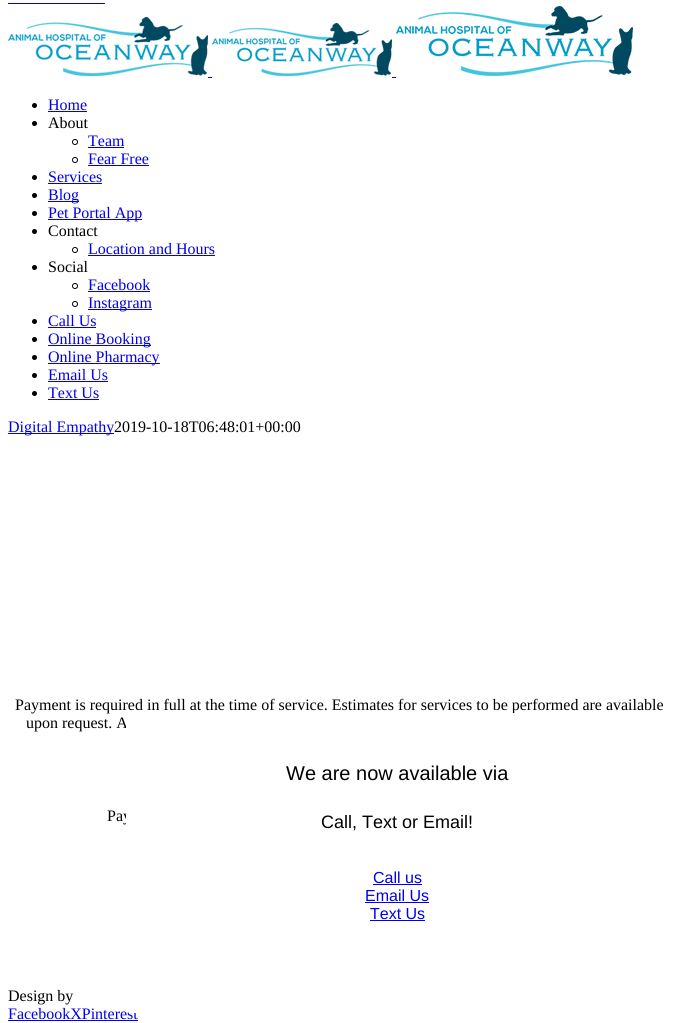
#include <cairo/cairo.h>
#include <math.h>
#include <stddef.h>


static void rounded_rect(cairo_t *cr, double x, double y, double w, double h, double r) {
  cairo_new_sub_path(cr);
  cairo_arc(cr, x + w - r, y + h - r, r, 0, M_PI / 2);
  cairo_arc(cr, x + r, y + h - r, r, M_PI / 2, M_PI);
  cairo_arc(cr, x + r, y + r, r, M_PI, 1.5 * M_PI);
  cairo_arc(cr, x + w - r, y + r, r, 1.5 * M_PI, 2 * M_PI);
  cairo_close_path(cr);
}

static void draw_image(cairo_t *cr, const char *path, double x, double y, double w, double h) {
  cairo_surface_t *image = cairo_image_surface_create_from_png(path);
  cairo_save(cr);
  cairo_set_source_surface(cr, image, x, y);
  cairo_rectangle(cr, x, y, w, h);
  cairo_fill(cr);
  cairo_restore(cr);
  cairo_surface_destroy(image);
}

static void draw(cairo_t *cr) {
  cairo_set_source_rgb(cr, 1, 1, 1);
  cairo_paint(cr);
  cairo_set_source_rgb(cr, 0, 0, 238 / 255.0);
  cairo_rectangle(cr, 8, 3, 97, 1);
  cairo_fill(cr);
  draw_image(cr, "images/1.png", 8, 17, 200, 59);
  draw_image(cr, "images/2.png", 212, 23, 180, 53);
  draw_image(cr, "images/3.png", 396, 6, 237, 70);
  cairo_rectangle(cr, 208, 77, 4, 1);
  cairo_fill(cr);
  cairo_rectangle(cr, 392, 77, 4, 1);
  cairo_fill(cr);
  cairo_set_source_rgb(cr, 0, 0, 0);
  cairo_arc(cr, 34.5, 105.5, 2.5, 0, 2 * M_PI);
  cairo_fill(cr);
  cairo_set_source_rgb(cr, 0, 0, 238 / 255.0);
  cairo_rectangle(cr, 48, 111, 39, 1);
  cairo_fill(cr);
  cairo_set_source_rgb(cr, 0, 0, 0);
  cairo_arc(cr, 34.5, 123.5, 2.5, 0, 2 * M_PI);
  cairo_fill(cr);
  cairo_arc(cr, 75, 142, 2.5, 0, 2 * M_PI);
  cairo_set_line_width(cr, 1);
  cairo_stroke(cr);
  cairo_set_source_rgb(cr, 0, 0, 238 / 255.0);
  cairo_rectangle(cr, 88, 147, 36, 1);
  cairo_fill(cr);
  cairo_arc(cr, 75, 160, 2.5, 0, 2 * M_PI);
  cairo_set_source_rgb(cr, 0, 0, 0);
  cairo_stroke(cr);
  cairo_set_source_rgb(cr, 0, 0, 238 / 255.0);
  cairo_rectangle(cr, 88, 165, 61, 1);
  cairo_fill(cr);
  cairo_set_source_rgb(cr, 0, 0, 0);
  cairo_arc(cr, 34.5, 177.5, 2.5, 0, 2 * M_PI);
  cairo_fill(cr);
  cairo_set_source_rgb(cr, 0, 0, 238 / 255.0);
  cairo_rectangle(cr, 48, 183, 54, 1);
  cairo_fill(cr);
  cairo_set_source_rgb(cr, 0, 0, 0);
  cairo_arc(cr, 34.5, 195.5, 2.5, 0, 2 * M_PI);
  cairo_fill(cr);
  cairo_set_source_rgb(cr, 0, 0, 238 / 255.0);
  cairo_rectangle(cr, 48, 201, 31, 1);
  cairo_fill(cr);
  cairo_set_source_rgb(cr, 0, 0, 0);
  cairo_arc(cr, 34.5, 213.5, 2.5, 0, 2 * M_PI);
  cairo_fill(cr);
  cairo_set_source_rgb(cr, 0, 0, 238 / 255.0);
  cairo_rectangle(cr, 48, 219, 94, 1);
  cairo_fill(cr);
  cairo_set_source_rgb(cr, 0, 0, 0);
  cairo_arc(cr, 34.5, 231.5, 2.5, 0, 2 * M_PI);
  cairo_fill(cr);
  cairo_arc(cr, 75, 250, 2.5, 0, 2 * M_PI);
  cairo_stroke(cr);
  cairo_set_source_rgb(cr, 0, 0, 238 / 255.0);
  cairo_rectangle(cr, 88, 255, 127, 1);
  cairo_fill(cr);
  cairo_set_source_rgb(cr, 0, 0, 0);
  cairo_arc(cr, 34.5, 267.5, 2.5, 0, 2 * M_PI);
  cairo_fill(cr);
  cairo_arc(cr, 75, 286, 2.5, 0, 2 * M_PI);
  cairo_stroke(cr);
  cairo_set_source_rgb(cr, 0, 0, 238 / 255.0);
  cairo_rectangle(cr, 88, 291, 62, 1);
  cairo_fill(cr);
  cairo_arc(cr, 75, 304, 2.5, 0, 2 * M_PI);
  cairo_set_source_rgb(cr, 0, 0, 0);
  cairo_stroke(cr);
  cairo_set_source_rgb(cr, 0, 0, 238 / 255.0);
  cairo_rectangle(cr, 88, 309, 64, 1);
  cairo_fill(cr);
  cairo_set_source_rgb(cr, 0, 0, 0);
  cairo_arc(cr, 34.5, 321.5, 2.5, 0, 2 * M_PI);
  cairo_fill(cr);
  cairo_set_source_rgb(cr, 0, 0, 238 / 255.0);
  cairo_rectangle(cr, 48, 327, 48, 1);
  cairo_fill(cr);
  cairo_set_source_rgb(cr, 0, 0, 0);
  cairo_arc(cr, 34.5, 339.5, 2.5, 0, 2 * M_PI);
  cairo_fill(cr);
  cairo_set_source_rgb(cr, 0, 0, 238 / 255.0);
  cairo_rectangle(cr, 48, 345, 103, 1);
  cairo_fill(cr);
  cairo_set_source_rgb(cr, 0, 0, 0);
  cairo_arc(cr, 34.5, 357.5, 2.5, 0, 2 * M_PI);
  cairo_fill(cr);
  cairo_set_source_rgb(cr, 0, 0, 238 / 255.0);
  cairo_rectangle(cr, 48, 363, 112, 1);
  cairo_fill(cr);
  cairo_set_source_rgb(cr, 0, 0, 0);
  cairo_arc(cr, 34.5, 375.5, 2.5, 0, 2 * M_PI);
  cairo_fill(cr);
  cairo_set_source_rgb(cr, 0, 0, 238 / 255.0);
  cairo_rectangle(cr, 48, 381, 60, 1);
  cairo_fill(cr);
  cairo_set_source_rgb(cr, 0, 0, 0);
  cairo_arc(cr, 34.5, 393.5, 2.5, 0, 2 * M_PI);
  cairo_fill(cr);
  cairo_set_source_rgb(cr, 0, 0, 238 / 255.0);
  cairo_rectangle(cr, 48, 399, 51, 1);
  cairo_fill(cr);
  cairo_rectangle(cr, 8, 433, 106, 1);
  cairo_fill(cr);
  cairo_rectangle(cr, 8, 1020, 130, 1);
  cairo_fill(cr);
  cairo_select_font_face(cr, "Liberation Serif", CAIRO_FONT_SLANT_NORMAL, CAIRO_FONT_WEIGHT_NORMAL);
  cairo_set_font_size(cr, 16);
  cairo_move_to(cr, 48, 110);
  cairo_show_text(cr, "Home");
  cairo_set_source_rgb(cr, 0, 0, 0);
  cairo_move_to(cr, 48, 128);
  cairo_show_text(cr, "About");
  cairo_set_source_rgb(cr, 0, 0, 238 / 255.0);
  cairo_move_to(cr, 88, 146);
  cairo_show_text(cr, "Team");
  cairo_move_to(cr, 88, 164);
  cairo_show_text(cr, "Fear Free");
  cairo_move_to(cr, 48, 182);
  cairo_show_text(cr, "Services");
  cairo_move_to(cr, 48, 200);
  cairo_show_text(cr, "Blog");
  cairo_move_to(cr, 48, 218);
  cairo_show_text(cr, "Pet Portal App");
  cairo_set_source_rgb(cr, 0, 0, 0);
  cairo_move_to(cr, 48, 236);
  cairo_show_text(cr, "Contact");
  cairo_set_source_rgb(cr, 0, 0, 238 / 255.0);
  cairo_move_to(cr, 88, 254);
  cairo_show_text(cr, "Location and Hours");
  cairo_set_source_rgb(cr, 0, 0, 0);
  cairo_move_to(cr, 48, 272);
  cairo_show_text(cr, "Social");
  cairo_set_source_rgb(cr, 0, 0, 238 / 255.0);
  cairo_move_to(cr, 88, 290);
  cairo_show_text(cr, "Facebook");
  cairo_move_to(cr, 88, 308);
  cairo_show_text(cr, "Instagram");
  cairo_move_to(cr, 48, 326);
  cairo_show_text(cr, "Call Us");
  cairo_move_to(cr, 48, 344);
  cairo_show_text(cr, "Online Booking");
  cairo_move_to(cr, 48, 362);
  cairo_show_text(cr, "Online Pharmacy");
  cairo_move_to(cr, 48, 380);
  cairo_show_text(cr, "Email Us");
  cairo_move_to(cr, 48, 398);
  cairo_show_text(cr, "Text Us");
  cairo_move_to(cr, 8, 432);
  cairo_show_text(cr, "Digital Empathy");
  cairo_set_source_rgb(cr, 0, 0, 0);
  cairo_move_to(cr, 114, 432);
  cairo_show_text(cr, "2019-10-18T06:48:01+00:00");
  cairo_move_to(cr, 15, 710);
  cairo_show_text(cr, "Payment is required in full at the time of service. Estimates for services to be performed are available");
  cairo_move_to(cr, 26, 728);
  cairo_show_text(cr, "upon request. A");
  cairo_move_to(cr, 107, 821);
  cairo_show_text(cr, "Pay");
  cairo_move_to(cr, 8, 1001);
  cairo_show_text(cr, "Design by");
  cairo_set_source_rgb(cr, 0, 0, 238 / 255.0);
  cairo_move_to(cr, 8, 1019);
  cairo_show_text(cr, "FacebookXPinterest");
  cairo_set_source_rgb(cr, 1, 1, 1);
  rounded_rect(cr, 126, 713, 543, 300, 4);
  cairo_fill(cr);
  cairo_select_font_face(cr, "Liberation Sans", CAIRO_FONT_SLANT_NORMAL, CAIRO_FONT_WEIGHT_NORMAL);
  cairo_set_font_size(cr, 20);
  cairo_set_source_rgb(cr, 0, 0, 0);
  cairo_move_to(cr, 286, 780);
  cairo_show_text(cr, "We are now available via");
  cairo_set_font_size(cr, 18);
  cairo_move_to(cr, 321, 828);
  cairo_show_text(cr, "Call, Text or Email!");
  cairo_set_font_size(cr, 16);
  cairo_set_source_rgb(cr, 0, 0, 238 / 255.0);
  cairo_move_to(cr, 373, 883);
  cairo_show_text(cr, "Call us");
  cairo_rectangle(cr, 373, 884, 49, 1);
  cairo_fill(cr);
  cairo_move_to(cr, 365, 901);
  cairo_show_text(cr, "Email Us");
  cairo_rectangle(cr, 365, 902, 64, 1);
  cairo_fill(cr);
  cairo_move_to(cr, 370, 919);
  cairo_show_text(cr, "Text Us");
  cairo_rectangle(cr, 370, 920, 55, 1);
  cairo_fill(cr);
}

int main(void) {
  cairo_surface_t *surface = cairo_image_surface_create(CAIRO_FORMAT_RGB24, 679, 1023);
  cairo_t *cr = cairo_create(surface);
  cairo_font_options_t *options = cairo_font_options_create();
  cairo_font_options_set_hint_metrics(options, CAIRO_HINT_METRICS_OFF);
  cairo_font_options_set_hint_style(options, CAIRO_HINT_STYLE_NONE);
  cairo_set_font_options(cr, options);
  cairo_set_miter_limit(cr, 4);
  draw(cr);
  cairo_surface_write_to_png(surface, "out.png");
  cairo_font_options_destroy(options);
  cairo_destroy(cr);
  cairo_surface_destroy(surface);
  return 0;
}
